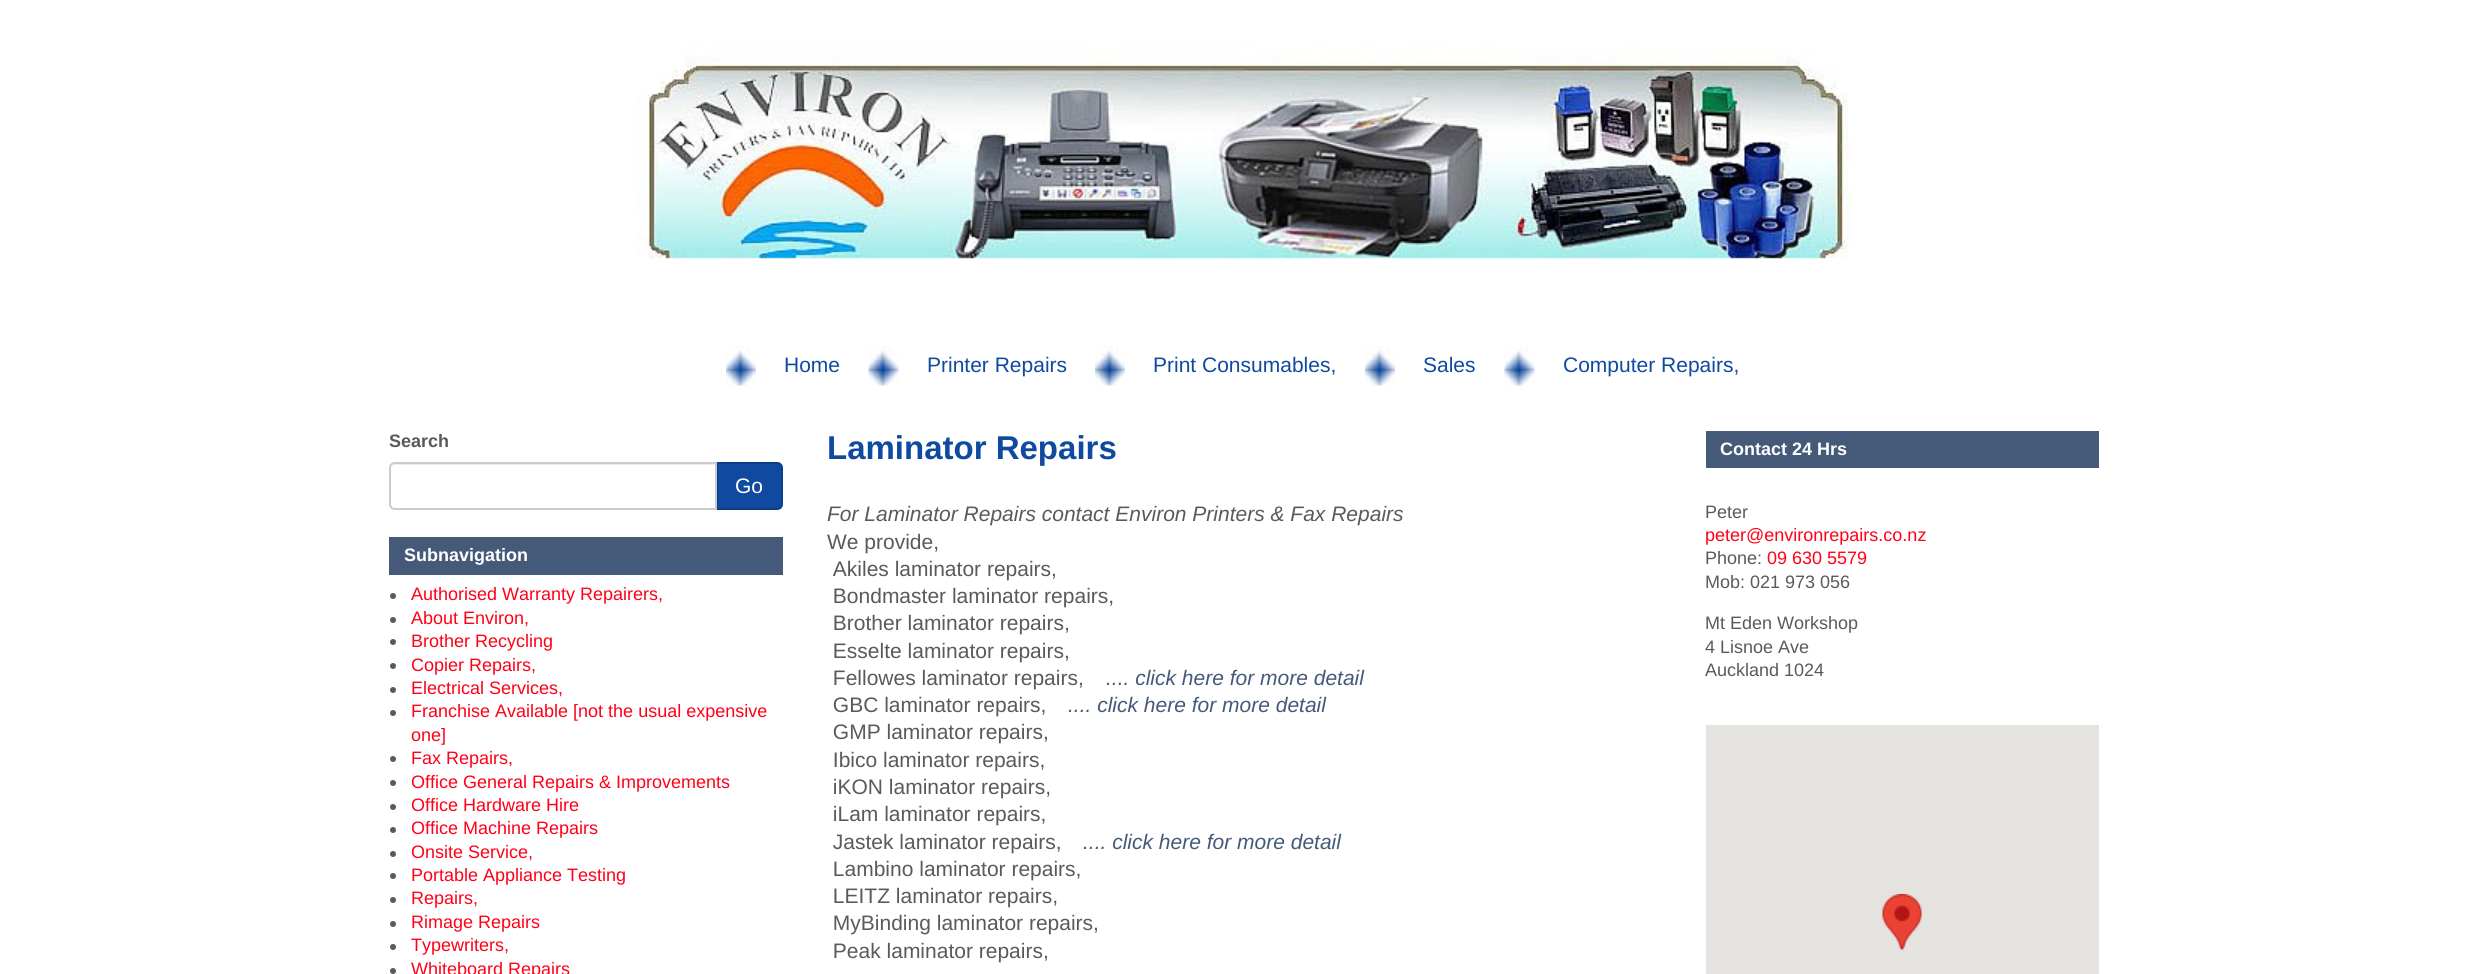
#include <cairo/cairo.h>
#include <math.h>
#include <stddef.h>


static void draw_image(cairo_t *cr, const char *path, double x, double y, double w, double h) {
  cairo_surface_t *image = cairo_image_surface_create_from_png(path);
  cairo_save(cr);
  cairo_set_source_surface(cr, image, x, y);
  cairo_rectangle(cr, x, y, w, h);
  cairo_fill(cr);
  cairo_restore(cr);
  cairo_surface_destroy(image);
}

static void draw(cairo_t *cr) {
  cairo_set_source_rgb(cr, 1, 1, 1);
  cairo_paint(cr);
  draw_image(cr, "images/1.png", 636, 45, 1215, 214);
  draw_image(cr, "images/2.png", 726, 346, 30, 40);
  draw_image(cr, "images/3.png", 868, 346, 31, 40);
  draw_image(cr, "images/2.png", 1095, 346, 30, 40);
  draw_image(cr, "images/2.png", 1365, 346, 30, 40);
  draw_image(cr, "images/4.png", 1504, 346, 31, 40);
  cairo_set_source_rgb(cr, 15 / 255.0, 74 / 255.0, 160 / 255.0);
  cairo_new_path(cr);
  cairo_move_to(cr, 717, 463);
  cairo_line_to(cr, 777, 463);
  cairo_curve_to(cr, 780, 463, 782, 465, 782, 468);
  cairo_line_to(cr, 782, 504);
  cairo_curve_to(cr, 782, 507, 780, 509, 777, 509);
  cairo_line_to(cr, 717, 509);
  cairo_close_path(cr);
  cairo_fill_preserve(cr);
  cairo_set_source_rgb(cr, 13 / 255.0, 63 / 255.0, 137 / 255.0);
  cairo_stroke(cr);
  cairo_set_source_rgb(cr, 1, 1, 1);
  cairo_new_path(cr);
  cairo_move_to(cr, 395, 462);
  cairo_line_to(cr, 717, 462);
  cairo_line_to(cr, 717, 510);
  cairo_line_to(cr, 395, 510);
  cairo_curve_to(cr, 391.5, 510, 389, 507.5, 389, 504);
  cairo_line_to(cr, 389, 468);
  cairo_curve_to(cr, 389, 464.5, 391.5, 462, 395, 462);
  cairo_close_path(cr);
  cairo_fill(cr);
  cairo_set_source_rgb(cr, 236 / 255.0, 236 / 255.0, 236 / 255.0);
  cairo_new_path(cr);
  cairo_move_to(cr, 394, 465);
  cairo_line_to(cr, 716, 465);
  cairo_line_to(cr, 716, 464);
  cairo_line_to(cr, 395, 464);
  cairo_curve_to(cr, 392, 464, 390, 467, 390, 470);
  cairo_curve_to(cr, 390, 467, 392, 465, 394, 465);
  cairo_close_path(cr);
  cairo_fill(cr);
  cairo_new_path(cr);
  cairo_move_to(cr, 395, 463);
  cairo_line_to(cr, 716, 463);
  cairo_line_to(cr, 716, 509);
  cairo_line_to(cr, 395, 509);
  cairo_curve_to(cr, 392, 509, 390, 507, 390, 504);
  cairo_line_to(cr, 390, 468);
  cairo_curve_to(cr, 390, 465, 392, 463, 395, 463);
  cairo_close_path(cr);
  cairo_set_source_rgb(cr, 204 / 255.0, 204 / 255.0, 204 / 255.0);
  cairo_stroke(cr);
  cairo_set_source_rgb(cr, 69 / 255.0, 90 / 255.0, 121 / 255.0);
  cairo_rectangle(cr, 389, 537, 394, 38);
  cairo_fill(cr);
  cairo_set_source_rgb(cr, 90 / 255.0, 90 / 255.0, 90 / 255.0);
  cairo_arc(cr, 393, 596, 3, 0, 2 * M_PI);
  cairo_fill(cr);
  cairo_arc(cr, 393, 620, 3, 0, 2 * M_PI);
  cairo_fill(cr);
  cairo_arc(cr, 393, 642, 3, 0, 2 * M_PI);
  cairo_fill(cr);
  cairo_arc(cr, 393, 666, 3, 0, 2 * M_PI);
  cairo_fill(cr);
  cairo_arc(cr, 393, 690, 3, 0, 2 * M_PI);
  cairo_fill(cr);
  cairo_arc(cr, 393, 713, 3, 0, 2 * M_PI);
  cairo_fill(cr);
  cairo_arc(cr, 393, 759, 3, 0, 2 * M_PI);
  cairo_fill(cr);
  cairo_arc(cr, 393, 783, 3, 0, 2 * M_PI);
  cairo_fill(cr);
  cairo_arc(cr, 393, 807, 3, 0, 2 * M_PI);
  cairo_fill(cr);
  cairo_arc(cr, 393, 830, 3, 0, 2 * M_PI);
  cairo_fill(cr);
  cairo_arc(cr, 393, 854, 3, 0, 2 * M_PI);
  cairo_fill(cr);
  cairo_arc(cr, 393, 876, 3, 0, 2 * M_PI);
  cairo_fill(cr);
  cairo_arc(cr, 393, 900, 3, 0, 2 * M_PI);
  cairo_fill(cr);
  cairo_arc(cr, 393, 924, 3, 0, 2 * M_PI);
  cairo_fill(cr);
  cairo_arc(cr, 393, 947, 3, 0, 2 * M_PI);
  cairo_fill(cr);
  cairo_arc(cr, 393, 971, 3, 0, 2 * M_PI);
  cairo_fill(cr);
  cairo_set_source_rgb(cr, 69 / 255.0, 90 / 255.0, 121 / 255.0);
  cairo_rectangle(cr, 1706, 431, 393, 37);
  cairo_fill(cr);
  cairo_set_source_rgb(cr, 229 / 255.0, 227 / 255.0, 223 / 255.0);
  cairo_rectangle(cr, 1706, 725, 393, 249);
  cairo_fill(cr);
  draw_image(cr, "images/5.png", 1882, 894, 40, 56);
  cairo_select_font_face(cr, "Liberation Sans", CAIRO_FONT_SLANT_NORMAL, CAIRO_FONT_WEIGHT_NORMAL);
  cairo_set_font_size(cr, 21);
  cairo_set_source_rgb(cr, 15 / 255.0, 74 / 255.0, 160 / 255.0);
  cairo_move_to(cr, 784, 372);
  cairo_show_text(cr, "Home");
  cairo_move_to(cr, 927, 372);
  cairo_show_text(cr, "Printer Repairs");
  cairo_move_to(cr, 1153, 372);
  cairo_show_text(cr, "Print Consumables,");
  cairo_move_to(cr, 1423, 372);
  cairo_show_text(cr, "Sales");
  cairo_move_to(cr, 1563, 372);
  cairo_show_text(cr, "Computer Repairs,");
  cairo_select_font_face(cr, "Liberation Sans", CAIRO_FONT_SLANT_NORMAL, CAIRO_FONT_WEIGHT_BOLD);
  cairo_set_font_size(cr, 18);
  cairo_set_source_rgb(cr, 90 / 255.0, 90 / 255.0, 90 / 255.0);
  cairo_move_to(cr, 389, 447);
  cairo_show_text(cr, "Search");
  cairo_select_font_face(cr, "Liberation Sans", CAIRO_FONT_SLANT_NORMAL, CAIRO_FONT_WEIGHT_NORMAL);
  cairo_set_font_size(cr, 21);
  cairo_set_source_rgb(cr, 1, 1, 1);
  cairo_move_to(cr, 735, 493);
  cairo_show_text(cr, "Go");
  cairo_select_font_face(cr, "Liberation Sans", CAIRO_FONT_SLANT_NORMAL, CAIRO_FONT_WEIGHT_BOLD);
  cairo_set_font_size(cr, 18);
  cairo_move_to(cr, 404, 561);
  cairo_show_text(cr, "Subnavigation");
  cairo_select_font_face(cr, "Liberation Sans", CAIRO_FONT_SLANT_NORMAL, CAIRO_FONT_WEIGHT_NORMAL);
  cairo_set_source_rgb(cr, 1, 0, 24 / 255.0);
  cairo_move_to(cr, 411, 600);
  cairo_show_text(cr, "Authorised Warranty Repairers,");
  cairo_move_to(cr, 411, 624);
  cairo_show_text(cr, "About Environ,");
  cairo_move_to(cr, 411, 647);
  cairo_show_text(cr, "Brother Recycling");
  cairo_move_to(cr, 411, 671);
  cairo_show_text(cr, "Copier Repairs,");
  cairo_move_to(cr, 411, 694);
  cairo_show_text(cr, "Electrical Services,");
  cairo_move_to(cr, 411, 717);
  cairo_show_text(cr, "Franchise Available [not the usual expensive");
  cairo_move_to(cr, 411, 741);
  cairo_show_text(cr, "one]");
  cairo_move_to(cr, 411, 764);
  cairo_show_text(cr, "Fax Repairs,");
  cairo_move_to(cr, 411, 788);
  cairo_show_text(cr, "Office General Repairs & Improvements");
  cairo_move_to(cr, 411, 811);
  cairo_show_text(cr, "Office Hardware Hire");
  cairo_move_to(cr, 411, 834);
  cairo_show_text(cr, "Office Machine Repairs");
  cairo_move_to(cr, 411, 858);
  cairo_show_text(cr, "Onsite Service,");
  cairo_move_to(cr, 411, 881);
  cairo_show_text(cr, "Portable Appliance Testing");
  cairo_move_to(cr, 411, 904);
  cairo_show_text(cr, "Repairs,");
  cairo_move_to(cr, 411, 928);
  cairo_show_text(cr, "Rimage Repairs");
  cairo_move_to(cr, 411, 951);
  cairo_show_text(cr, "Typewriters,");
  cairo_move_to(cr, 411, 975);
  cairo_show_text(cr, "Whiteboard Repairs");
  cairo_select_font_face(cr, "Liberation Sans", CAIRO_FONT_SLANT_NORMAL, CAIRO_FONT_WEIGHT_BOLD);
  cairo_set_font_size(cr, 33);
  cairo_set_source_rgb(cr, 15 / 255.0, 74 / 255.0, 160 / 255.0);
  cairo_move_to(cr, 827, 459);
  cairo_show_text(cr, "Laminator Repairs");
  cairo_select_font_face(cr, "Liberation Sans", CAIRO_FONT_SLANT_ITALIC, CAIRO_FONT_WEIGHT_NORMAL);
  cairo_set_font_size(cr, 21);
  cairo_set_source_rgb(cr, 90 / 255.0, 90 / 255.0, 90 / 255.0);
  cairo_move_to(cr, 827, 521);
  cairo_show_text(cr, "For Laminator Repairs contact Environ Printers & Fax Repairs");
  cairo_select_font_face(cr, "Liberation Sans", CAIRO_FONT_SLANT_NORMAL, CAIRO_FONT_WEIGHT_NORMAL);
  cairo_move_to(cr, 827, 549);
  cairo_show_text(cr, "We provide,");
  cairo_move_to(cr, 827, 576);
  cairo_show_text(cr, " Akiles laminator repairs,");
  cairo_move_to(cr, 827, 603);
  cairo_show_text(cr, " Bondmaster laminator repairs,");
  cairo_move_to(cr, 827, 630);
  cairo_show_text(cr, " Brother laminator repairs,");
  cairo_move_to(cr, 827, 658);
  cairo_show_text(cr, " Esselte laminator repairs,");
  cairo_move_to(cr, 827, 685);
  cairo_show_text(cr, " Fellowes laminator repairs,");
  cairo_select_font_face(cr, "Liberation Sans", CAIRO_FONT_SLANT_ITALIC, CAIRO_FONT_WEIGHT_NORMAL);
  cairo_set_source_rgb(cr, 69 / 255.0, 90 / 255.0, 121 / 255.0);
  cairo_move_to(cr, 1106, 685);
  cairo_show_text(cr, ".... click here for more detail");
  cairo_select_font_face(cr, "Liberation Sans", CAIRO_FONT_SLANT_NORMAL, CAIRO_FONT_WEIGHT_NORMAL);
  cairo_set_source_rgb(cr, 90 / 255.0, 90 / 255.0, 90 / 255.0);
  cairo_move_to(cr, 827, 712);
  cairo_show_text(cr, " GBC laminator repairs,");
  cairo_select_font_face(cr, "Liberation Sans", CAIRO_FONT_SLANT_ITALIC, CAIRO_FONT_WEIGHT_NORMAL);
  cairo_set_source_rgb(cr, 69 / 255.0, 90 / 255.0, 121 / 255.0);
  cairo_move_to(cr, 1068, 712);
  cairo_show_text(cr, ".... click here for more detail");
  cairo_select_font_face(cr, "Liberation Sans", CAIRO_FONT_SLANT_NORMAL, CAIRO_FONT_WEIGHT_NORMAL);
  cairo_set_source_rgb(cr, 90 / 255.0, 90 / 255.0, 90 / 255.0);
  cairo_move_to(cr, 827, 739);
  cairo_show_text(cr, " GMP laminator repairs,");
  cairo_move_to(cr, 827, 767);
  cairo_show_text(cr, " Ibico laminator repairs,");
  cairo_move_to(cr, 827, 794);
  cairo_show_text(cr, " iKON laminator repairs,");
  cairo_move_to(cr, 827, 821);
  cairo_show_text(cr, " iLam laminator repairs,");
  cairo_move_to(cr, 827, 849);
  cairo_show_text(cr, " Jastek laminator repairs,");
  cairo_select_font_face(cr, "Liberation Sans", CAIRO_FONT_SLANT_ITALIC, CAIRO_FONT_WEIGHT_NORMAL);
  cairo_set_source_rgb(cr, 69 / 255.0, 90 / 255.0, 121 / 255.0);
  cairo_move_to(cr, 1083, 849);
  cairo_show_text(cr, ".... click here for more detail");
  cairo_select_font_face(cr, "Liberation Sans", CAIRO_FONT_SLANT_NORMAL, CAIRO_FONT_WEIGHT_NORMAL);
  cairo_set_source_rgb(cr, 90 / 255.0, 90 / 255.0, 90 / 255.0);
  cairo_move_to(cr, 827, 876);
  cairo_show_text(cr, " Lambino laminator repairs,");
  cairo_move_to(cr, 827, 903);
  cairo_show_text(cr, " LEITZ laminator repairs,");
  cairo_move_to(cr, 827, 930);
  cairo_show_text(cr, " MyBinding laminator repairs,");
  cairo_move_to(cr, 827, 958);
  cairo_show_text(cr, " Peak laminator repairs,");
  cairo_select_font_face(cr, "Liberation Sans", CAIRO_FONT_SLANT_NORMAL, CAIRO_FONT_WEIGHT_BOLD);
  cairo_set_font_size(cr, 18);
  cairo_set_source_rgb(cr, 1, 1, 1);
  cairo_move_to(cr, 1720, 455);
  cairo_show_text(cr, "Contact 24 Hrs");
  cairo_select_font_face(cr, "Liberation Sans", CAIRO_FONT_SLANT_NORMAL, CAIRO_FONT_WEIGHT_NORMAL);
  cairo_set_source_rgb(cr, 90 / 255.0, 90 / 255.0, 90 / 255.0);
  cairo_move_to(cr, 1705, 518);
  cairo_show_text(cr, "Peter");
  cairo_set_source_rgb(cr, 1, 0, 24 / 255.0);
  cairo_move_to(cr, 1705, 541);
  cairo_show_text(cr, "peter@environrepairs.co.nz");
  cairo_set_source_rgb(cr, 90 / 255.0, 90 / 255.0, 90 / 255.0);
  cairo_move_to(cr, 1705, 564);
  cairo_show_text(cr, "Phone:");
  cairo_set_source_rgb(cr, 1, 0, 24 / 255.0);
  cairo_move_to(cr, 1767, 564);
  cairo_show_text(cr, "09 630 5579");
  cairo_set_source_rgb(cr, 90 / 255.0, 90 / 255.0, 90 / 255.0);
  cairo_move_to(cr, 1705, 588);
  cairo_show_text(cr, "Mob: 021 973 056");
  cairo_move_to(cr, 1705, 629);
  cairo_show_text(cr, "Mt Eden Workshop");
  cairo_move_to(cr, 1705, 653);
  cairo_show_text(cr, "4 Lisnoe Ave");
  cairo_move_to(cr, 1705, 676);
  cairo_show_text(cr, "Auckland 1024");
}

int main(void) {
  cairo_surface_t *surface = cairo_image_surface_create(CAIRO_FORMAT_RGB24, 2487, 974);
  cairo_t *cr = cairo_create(surface);
  cairo_font_options_t *options = cairo_font_options_create();
  cairo_font_options_set_hint_metrics(options, CAIRO_HINT_METRICS_OFF);
  cairo_font_options_set_hint_style(options, CAIRO_HINT_STYLE_NONE);
  cairo_set_font_options(cr, options);
  cairo_set_miter_limit(cr, 4);
  draw(cr);
  cairo_surface_write_to_png(surface, "out.png");
  cairo_font_options_destroy(options);
  cairo_destroy(cr);
  cairo_surface_destroy(surface);
  return 0;
}
